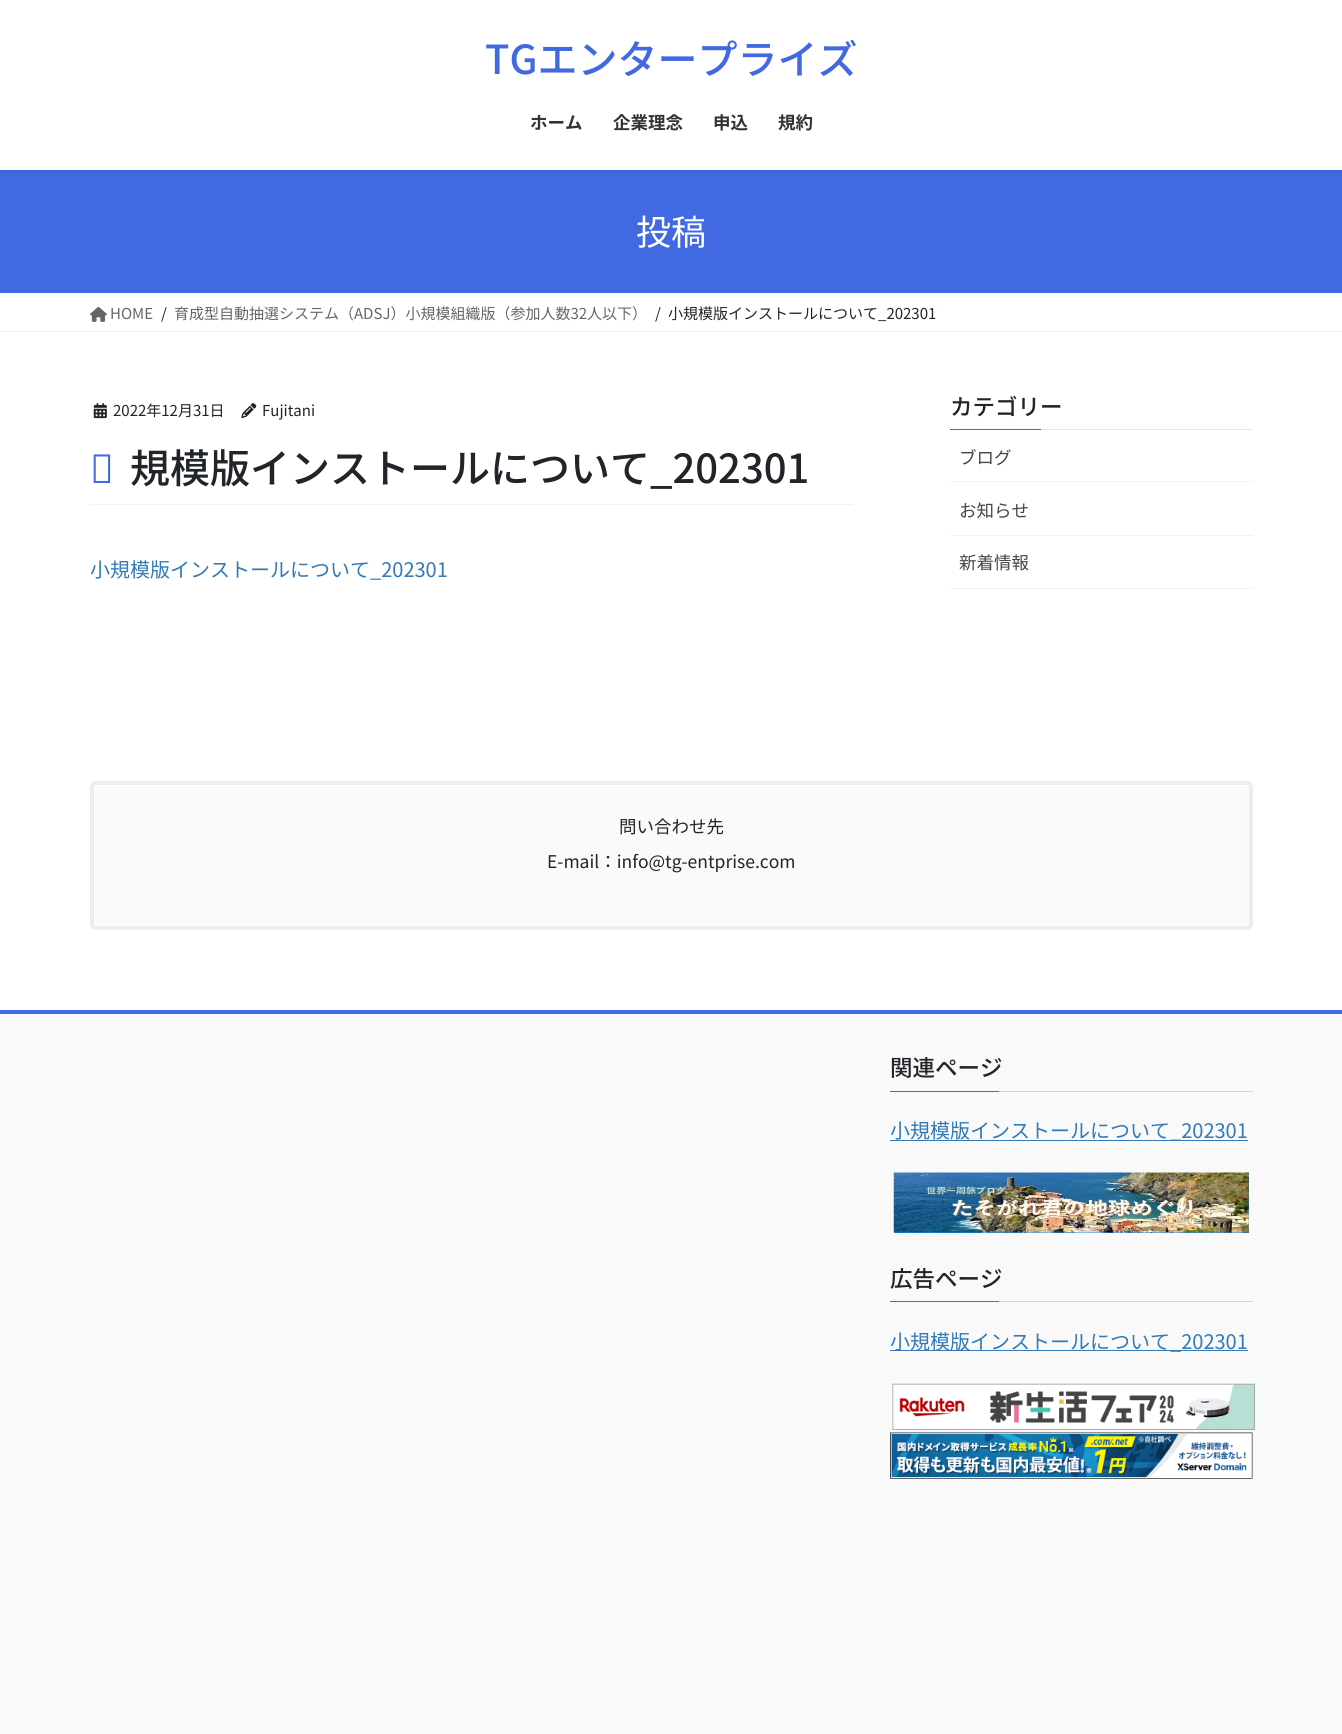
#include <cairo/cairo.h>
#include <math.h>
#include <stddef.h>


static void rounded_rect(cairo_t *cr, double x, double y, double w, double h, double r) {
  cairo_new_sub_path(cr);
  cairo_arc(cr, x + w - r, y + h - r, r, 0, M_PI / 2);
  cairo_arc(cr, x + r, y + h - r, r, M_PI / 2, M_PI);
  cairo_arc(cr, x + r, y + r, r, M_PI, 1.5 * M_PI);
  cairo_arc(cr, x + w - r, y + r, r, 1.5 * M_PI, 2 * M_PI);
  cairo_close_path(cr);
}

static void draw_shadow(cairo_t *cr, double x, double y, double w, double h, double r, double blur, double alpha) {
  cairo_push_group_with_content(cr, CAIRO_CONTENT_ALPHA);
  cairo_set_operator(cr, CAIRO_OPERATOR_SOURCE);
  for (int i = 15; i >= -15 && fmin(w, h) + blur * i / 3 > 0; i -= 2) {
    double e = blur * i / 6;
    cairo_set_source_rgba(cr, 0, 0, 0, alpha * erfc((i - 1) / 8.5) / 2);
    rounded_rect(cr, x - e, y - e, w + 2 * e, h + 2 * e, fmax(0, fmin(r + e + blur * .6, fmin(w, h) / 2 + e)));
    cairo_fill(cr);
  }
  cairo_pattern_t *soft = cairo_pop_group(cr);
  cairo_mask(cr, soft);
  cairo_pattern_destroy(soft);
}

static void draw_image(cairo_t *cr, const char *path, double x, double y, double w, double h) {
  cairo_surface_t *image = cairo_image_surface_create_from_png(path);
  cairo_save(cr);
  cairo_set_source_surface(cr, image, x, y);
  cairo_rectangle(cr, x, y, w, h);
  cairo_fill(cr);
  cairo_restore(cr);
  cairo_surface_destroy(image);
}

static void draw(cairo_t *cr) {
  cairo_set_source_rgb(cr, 1, 1, 1);
  cairo_paint(cr);
  cairo_set_source_rgb(cr, 65 / 255.0, 105 / 255.0, 225 / 255.0);
  cairo_rectangle(cr, 0, 170, 1342, 123);
  cairo_fill(cr);
  cairo_save(cr);
  cairo_rectangle(cr, 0, 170, 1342, 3);
  cairo_clip(cr);
  cairo_set_source_rgb(cr, 0, 0, 0);
  draw_shadow(cr, 0, 1, 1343, 170, 0, 2, 0.1);
  cairo_restore(cr);
  cairo_set_source_rgb(cr, 242 / 255.0, 242 / 255.0, 242 / 255.0);
  cairo_rectangle(cr, 0, 331, 1342, 1);
  cairo_fill(cr);
  draw_image(cr, "images/1.png", 90, 306, 17, 16);
  cairo_rectangle(cr, 90, 504, 763, 1);
  cairo_fill(cr);
  draw_image(cr, "images/2.png", 93, 403, 14, 16);
  draw_image(cr, "images/3.png", 241, 403, 16, 16);
  cairo_set_source_rgb(cr, 230 / 255.0, 230 / 255.0, 230 / 255.0);
  cairo_rectangle(cr, 1041, 429, 212, 1);
  cairo_fill(cr);
  cairo_set_source_rgb(cr, 65 / 255.0, 105 / 255.0, 225 / 255.0);
  cairo_rectangle(cr, 950, 429, 91, 1);
  cairo_fill(cr);
  cairo_set_source_rgb(cr, 242 / 255.0, 242 / 255.0, 242 / 255.0);
  cairo_rectangle(cr, 950, 481, 303, 1);
  cairo_fill(cr);
  cairo_rectangle(cr, 950, 535, 303, 1);
  cairo_fill(cr);
  cairo_rectangle(cr, 950, 588, 303, 1);
  cairo_fill(cr);
  rounded_rect(cr, 92, 783, 1159, 145, 4);
  cairo_set_source_rgb(cr, 237 / 255.0, 237 / 255.0, 237 / 255.0);
  cairo_set_line_width(cr, 4);
  cairo_stroke(cr);
  cairo_set_source_rgb(cr, 250 / 255.0, 250 / 255.0, 250 / 255.0);
  rounded_rect(cr, 94, 785, 1155, 141, 2.5);
  cairo_fill(cr);
  cairo_set_source_rgb(cr, 254 / 255.0, 254 / 255.0, 254 / 255.0);
  cairo_set_fill_rule(cr, CAIRO_FILL_RULE_EVEN_ODD);
  cairo_new_path(cr);
  cairo_move_to(cr, 96, 785);
  cairo_curve_to(cr, 95, 785, 94, 786, 94, 788);
  cairo_line_to(cr, 94, 924);
  cairo_curve_to(cr, 94, 925, 95, 926, 96, 926);
  cairo_line_to(cr, 1246, 926);
  cairo_curve_to(cr, 1248, 926, 1249, 925, 1249, 924);
  cairo_line_to(cr, 1249, 788);
  cairo_curve_to(cr, 1249, 786, 1248, 785, 1246, 785);
  cairo_close_path(cr);
  cairo_move_to(cr, 95, 786);
  cairo_line_to(cr, 95, 925);
  cairo_line_to(cr, 1248, 925);
  cairo_line_to(cr, 1248, 786);
  cairo_close_path(cr);
  cairo_fill(cr);
  cairo_set_source_rgb(cr, 249 / 255.0, 249 / 255.0, 249 / 255.0);
  cairo_rectangle(cr, 0, 1014, 1342, 720);
  cairo_fill(cr);
  cairo_set_source_rgb(cr, 65 / 255.0, 105 / 255.0, 225 / 255.0);
  cairo_rectangle(cr, 0, 1010, 1342, 4);
  cairo_fill(cr);
  cairo_set_source_rgb(cr, 212 / 255.0, 212 / 255.0, 212 / 255.0);
  cairo_rectangle(cr, 999, 1091, 254, 1);
  cairo_fill(cr);
  cairo_set_source_rgb(cr, 65 / 255.0, 105 / 255.0, 225 / 255.0);
  cairo_rectangle(cr, 890, 1091, 109, 1);
  cairo_fill(cr);
  cairo_set_source_rgb(cr, 51 / 255.0, 122 / 255.0, 183 / 255.0);
  cairo_rectangle(cr, 890, 1140, 358, 1);
  cairo_fill(cr);
  cairo_set_source_rgb(cr, 30 / 255.0, 144 / 255.0, 1);
  cairo_rectangle(cr, 894, 1173, 355, 60);
  cairo_fill(cr);
  draw_image(cr, "images/4.png", 893, 1172, 356, 61);
  cairo_set_source_rgb(cr, 212 / 255.0, 212 / 255.0, 212 / 255.0);
  cairo_rectangle(cr, 999, 1301, 254, 1);
  cairo_fill(cr);
  cairo_set_source_rgb(cr, 65 / 255.0, 105 / 255.0, 225 / 255.0);
  cairo_rectangle(cr, 890, 1301, 109, 1);
  cairo_fill(cr);
  cairo_set_source_rgb(cr, 51 / 255.0, 122 / 255.0, 183 / 255.0);
  cairo_rectangle(cr, 890, 1350, 358, 1);
  cairo_fill(cr);
  draw_image(cr, "images/5.png", 892, 1383, 363, 47);
  draw_image(cr, "images/6.png", 890, 1432, 363, 47);
  cairo_select_font_face(cr, "Noto Sans JP Medium", CAIRO_FONT_SLANT_NORMAL, CAIRO_FONT_WEIGHT_NORMAL);
  cairo_set_font_size(cr, 40);
  cairo_set_source_rgb(cr, 65 / 255.0, 105 / 255.0, 225 / 255.0);
  cairo_move_to(cr, 485, 74);
  cairo_show_text(cr, "TGエンタープライズ");
  cairo_select_font_face(cr, "Noto Sans JP", CAIRO_FONT_SLANT_NORMAL, CAIRO_FONT_WEIGHT_BOLD);
  cairo_set_font_size(cr, 17.5);
  cairo_set_source_rgb(cr, 51 / 255.0, 51 / 255.0, 51 / 255.0);
  cairo_move_to(cr, 530, 129);
  cairo_show_text(cr, "ホーム");
  cairo_move_to(cr, 613, 129);
  cairo_show_text(cr, "企業理念");
  cairo_move_to(cr, 713, 129);
  cairo_show_text(cr, "申込");
  cairo_move_to(cr, 778, 129);
  cairo_show_text(cr, "規約");
  cairo_select_font_face(cr, "Noto Sans JP", CAIRO_FONT_SLANT_NORMAL, CAIRO_FONT_WEIGHT_NORMAL);
  cairo_set_font_size(cr, 35);
  cairo_set_source_rgb(cr, 1, 1, 1);
  cairo_move_to(cr, 636, 245);
  cairo_show_text(cr, "投稿");
  cairo_set_font_size(cr, 15);
  cairo_set_source_rgb(cr, 102 / 255.0, 102 / 255.0, 102 / 255.0);
  cairo_move_to(cr, 110, 319);
  cairo_show_text(cr, "HOME");
  cairo_set_source_rgb(cr, 33 / 255.0, 37 / 255.0, 41 / 255.0);
  cairo_move_to(cr, 161, 319);
  cairo_show_text(cr, "/");
  cairo_set_source_rgb(cr, 102 / 255.0, 102 / 255.0, 102 / 255.0);
  cairo_move_to(cr, 174, 319);
  cairo_show_text(cr, "育成型自動抽選システム（ADSJ）小規模組織版（参加人数32人以下）");
  cairo_set_source_rgb(cr, 33 / 255.0, 37 / 255.0, 41 / 255.0);
  cairo_move_to(cr, 655, 319);
  cairo_show_text(cr, "/");
  cairo_move_to(cr, 668, 319);
  cairo_show_text(cr, "小規模版インストールについて_202301");
  cairo_move_to(cr, 113, 416);
  cairo_show_text(cr, "2022年12月31日");
  cairo_move_to(cr, 262, 416);
  cairo_show_text(cr, "Fujitani");
  cairo_select_font_face(cr, "Noto Sans Medium", CAIRO_FONT_SLANT_NORMAL, CAIRO_FONT_WEIGHT_NORMAL);
  cairo_set_font_size(cr, 40);
  cairo_set_source_rgb(cr, 65 / 255.0, 105 / 255.0, 225 / 255.0);
  cairo_move_to(cr, 90, 483);
  cairo_show_text(cr, "小");
  cairo_select_font_face(cr, "Noto Sans JP Medium", CAIRO_FONT_SLANT_NORMAL, CAIRO_FONT_WEIGHT_NORMAL);
  cairo_set_source_rgb(cr, 33 / 255.0, 37 / 255.0, 41 / 255.0);
  cairo_move_to(cr, 130, 483);
  cairo_show_text(cr, "規模版インストールについて_202301");
  cairo_select_font_face(cr, "Noto Sans JP", CAIRO_FONT_SLANT_NORMAL, CAIRO_FONT_WEIGHT_NORMAL);
  cairo_set_font_size(cr, 20);
  cairo_set_source_rgb(cr, 51 / 255.0, 122 / 255.0, 183 / 255.0);
  cairo_move_to(cr, 90, 577);
  cairo_show_text(cr, "小規模版インストールについて_202301");
  cairo_select_font_face(cr, "Noto Sans JP Medium", CAIRO_FONT_SLANT_NORMAL, CAIRO_FONT_WEIGHT_NORMAL);
  cairo_set_font_size(cr, 22.5);
  cairo_set_source_rgb(cr, 33 / 255.0, 37 / 255.0, 41 / 255.0);
  cairo_move_to(cr, 950, 415);
  cairo_show_text(cr, "カテゴリー");
  cairo_select_font_face(cr, "Noto Sans JP", CAIRO_FONT_SLANT_NORMAL, CAIRO_FONT_WEIGHT_NORMAL);
  cairo_set_font_size(cr, 17.5);
  cairo_set_source_rgb(cr, 70 / 255.0, 70 / 255.0, 70 / 255.0);
  cairo_move_to(cr, 959, 464);
  cairo_show_text(cr, "ブログ");
  cairo_move_to(cr, 959, 517);
  cairo_show_text(cr, "お知らせ");
  cairo_move_to(cr, 959, 569);
  cairo_show_text(cr, "新着情報");
  cairo_set_source_rgb(cr, 33 / 255.0, 37 / 255.0, 41 / 255.0);
  cairo_move_to(cr, 619, 833);
  cairo_show_text(cr, "問い合わせ先");
  cairo_move_to(cr, 547, 868);
  cairo_show_text(cr, "E-mail：info@tg-entprise.com");
  cairo_select_font_face(cr, "Noto Sans JP Medium", CAIRO_FONT_SLANT_NORMAL, CAIRO_FONT_WEIGHT_NORMAL);
  cairo_set_font_size(cr, 22.5);
  cairo_move_to(cr, 890, 1076);
  cairo_show_text(cr, "関連ページ");
  cairo_select_font_face(cr, "Noto Sans JP", CAIRO_FONT_SLANT_NORMAL, CAIRO_FONT_WEIGHT_NORMAL);
  cairo_set_font_size(cr, 20);
  cairo_set_source_rgb(cr, 51 / 255.0, 122 / 255.0, 183 / 255.0);
  cairo_move_to(cr, 890, 1138);
  cairo_show_text(cr, "小規模版インストールについて_202301");
  cairo_select_font_face(cr, "Noto Sans JP Medium", CAIRO_FONT_SLANT_NORMAL, CAIRO_FONT_WEIGHT_NORMAL);
  cairo_set_font_size(cr, 22.5);
  cairo_set_source_rgb(cr, 33 / 255.0, 37 / 255.0, 41 / 255.0);
  cairo_move_to(cr, 890, 1287);
  cairo_show_text(cr, "広告ページ");
  cairo_select_font_face(cr, "Noto Sans JP", CAIRO_FONT_SLANT_NORMAL, CAIRO_FONT_WEIGHT_NORMAL);
  cairo_set_font_size(cr, 20);
  cairo_set_source_rgb(cr, 51 / 255.0, 122 / 255.0, 183 / 255.0);
  cairo_move_to(cr, 890, 1349);
  cairo_show_text(cr, "小規模版インストールについて_202301");
}

int main(void) {
  cairo_surface_t *surface = cairo_image_surface_create(CAIRO_FORMAT_RGB24, 1342, 1734);
  cairo_t *cr = cairo_create(surface);
  cairo_font_options_t *options = cairo_font_options_create();
  cairo_font_options_set_hint_metrics(options, CAIRO_HINT_METRICS_OFF);
  cairo_font_options_set_hint_style(options, CAIRO_HINT_STYLE_NONE);
  cairo_set_font_options(cr, options);
  cairo_set_miter_limit(cr, 4);
  draw(cr);
  cairo_surface_write_to_png(surface, "out.png");
  cairo_font_options_destroy(options);
  cairo_destroy(cr);
  cairo_surface_destroy(surface);
  return 0;
}
